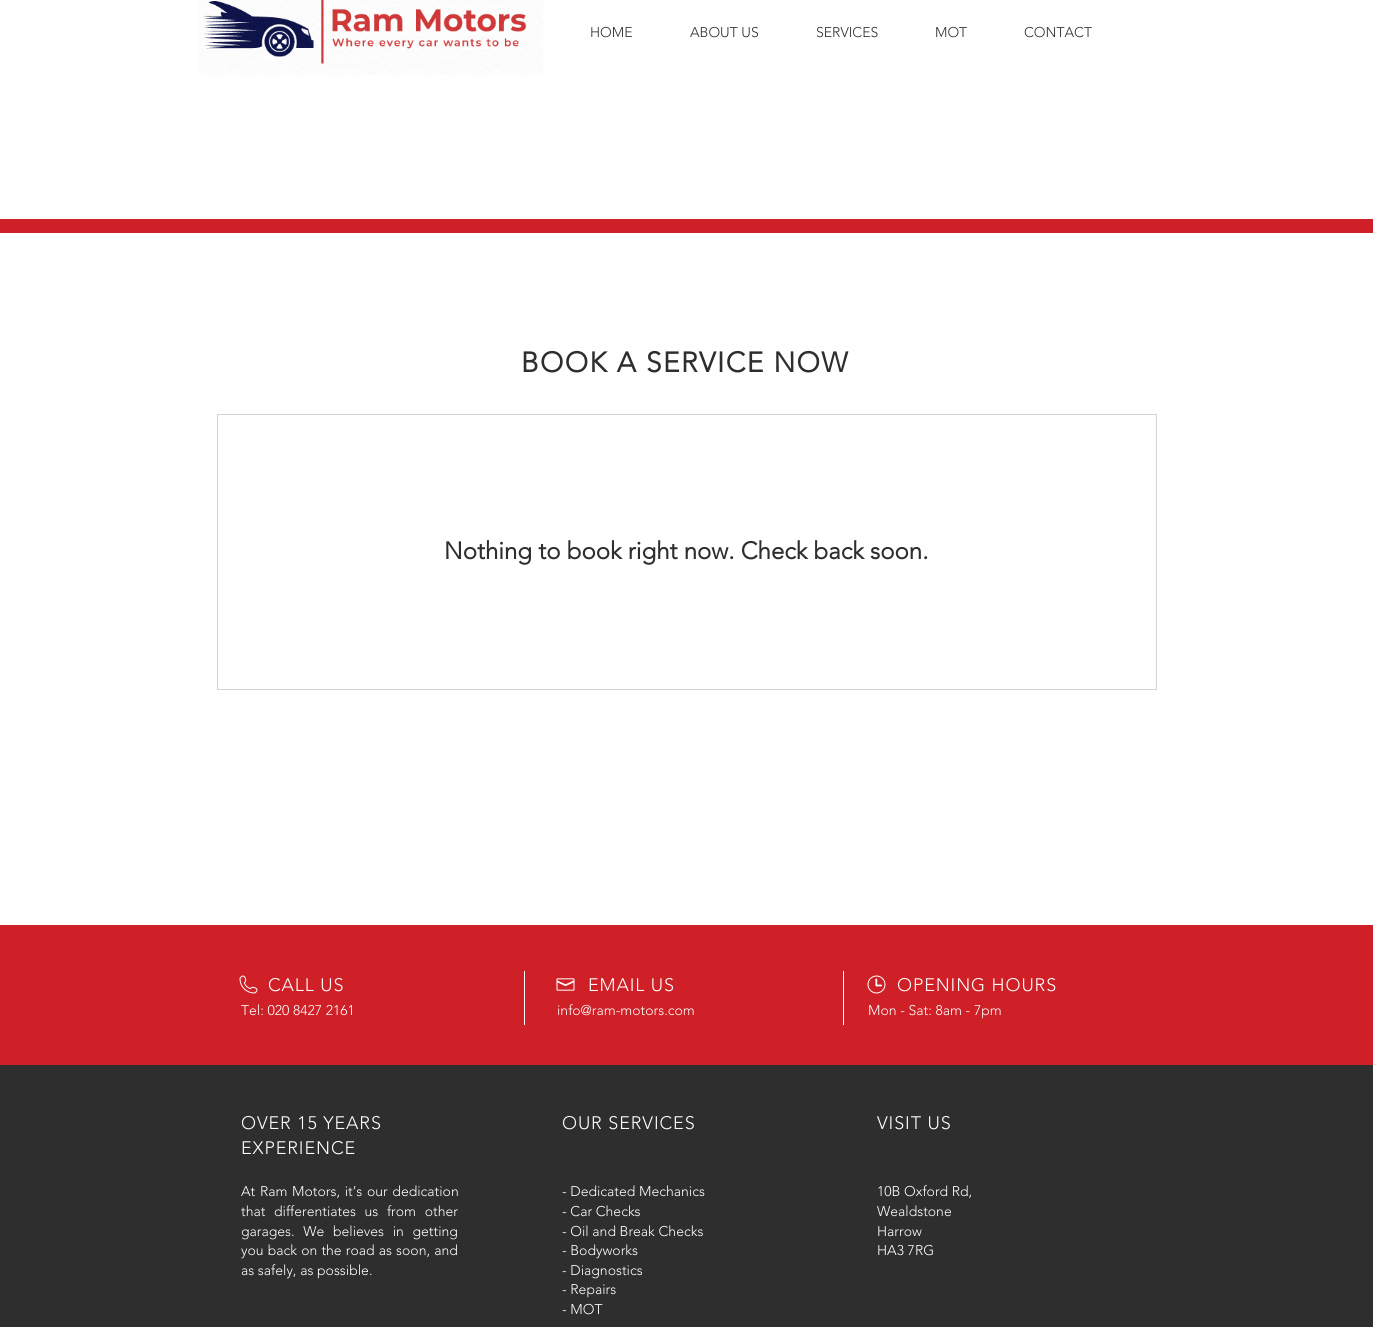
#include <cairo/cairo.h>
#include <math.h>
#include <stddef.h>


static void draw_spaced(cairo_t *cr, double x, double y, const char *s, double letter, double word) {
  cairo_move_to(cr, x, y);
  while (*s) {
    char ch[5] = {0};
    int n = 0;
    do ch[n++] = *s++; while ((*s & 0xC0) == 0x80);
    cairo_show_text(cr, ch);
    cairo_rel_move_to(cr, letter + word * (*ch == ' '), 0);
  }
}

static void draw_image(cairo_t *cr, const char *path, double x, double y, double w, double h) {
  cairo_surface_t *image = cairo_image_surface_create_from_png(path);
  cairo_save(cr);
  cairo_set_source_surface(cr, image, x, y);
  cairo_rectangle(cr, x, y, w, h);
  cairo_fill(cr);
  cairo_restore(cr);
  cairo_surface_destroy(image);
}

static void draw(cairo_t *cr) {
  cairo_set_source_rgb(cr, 1, 1, 1);
  cairo_paint(cr);
  draw_image(cr, "images/1.png", 198, 0, 345, 75);
  cairo_set_source_rgb(cr, 206 / 255.0, 32 / 255.0, 38 / 255.0);
  cairo_rectangle(cr, 0, 219, 1373, 14);
  cairo_fill(cr);
  cairo_rectangle(cr, 217.5, 414.5, 939, 275);
  cairo_set_source_rgb(cr, 213 / 255.0, 213 / 255.0, 213 / 255.0);
  cairo_set_line_width(cr, 1);
  cairo_stroke(cr);
  cairo_set_source_rgb(cr, 206 / 255.0, 32 / 255.0, 38 / 255.0);
  cairo_rectangle(cr, 0, 925, 1373, 140);
  cairo_fill(cr);
  draw_image(cr, "images/2.png", 239, 975, 19, 19);
  cairo_set_source_rgb(cr, 1, 1, 1);
  cairo_rectangle(cr, 524, 971, 1, 54);
  cairo_fill(cr);
  draw_image(cr, "images/3.png", 556, 978, 19, 13);
  cairo_rectangle(cr, 843, 971, 1, 54);
  cairo_fill(cr);
  draw_image(cr, "images/4.png", 867, 975, 19, 19);
  cairo_set_source_rgb(cr, 47 / 255.0, 46 / 255.0, 46 / 255.0);
  cairo_rectangle(cr, 0, 1065, 1373, 262);
  cairo_fill(cr);
  cairo_select_font_face(cr, "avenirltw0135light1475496 Light", CAIRO_FONT_SLANT_NORMAL, CAIRO_FONT_WEIGHT_NORMAL);
  cairo_set_font_size(cr, 14);
  cairo_move_to(cr, 590, 37);
  cairo_show_text(cr, "HOME");
  cairo_move_to(cr, 690, 37);
  cairo_show_text(cr, "ABOUT US");
  cairo_move_to(cr, 816, 37);
  cairo_show_text(cr, "SERVICES");
  cairo_move_to(cr, 935, 37);
  cairo_show_text(cr, "MOT");
  cairo_move_to(cr, 1024, 37);
  cairo_show_text(cr, "CONTACT");
  cairo_select_font_face(cr, "avenirltw0135light1475496", CAIRO_FONT_SLANT_NORMAL, CAIRO_FONT_WEIGHT_BOLD);
  cairo_set_font_size(cr, 28);
  draw_spaced(cr, 521, 372, "BOOK A SERVICE NOW", 1.4, 0);
  cairo_set_font_size(cr, 24);
  cairo_move_to(cr, 444, 559);
  cairo_show_text(cr, "Nothing to book right now. Check back soon.");
  cairo_select_font_face(cr, "avenirltw0135light1475496 Light", CAIRO_FONT_SLANT_NORMAL, CAIRO_FONT_WEIGHT_NORMAL);
  cairo_set_font_size(cr, 18);
  cairo_set_source_rgb(cr, 1, 1, 1);
  draw_spaced(cr, 268, 991, "CALL US", 0.9, 0);
  draw_spaced(cr, 588, 991, "EMAIL US", 0.9, 0);
  draw_spaced(cr, 897, 991, "OPENING HOURS", 0.9, 0);
  cairo_set_font_size(cr, 14);
  cairo_move_to(cr, 241, 1015);
  cairo_show_text(cr, "Tel: 020 8427 2161");
  cairo_move_to(cr, 557, 1015);
  cairo_show_text(cr, "info@ram-motors.com");
  cairo_move_to(cr, 868, 1015);
  cairo_show_text(cr, "Mon - Sat: 8am - 7pm");
  cairo_set_font_size(cr, 18);
  draw_spaced(cr, 241, 1129, "OVER 15 YEARS", 0.9, 0);
  draw_spaced(cr, 241, 1154, "EXPERIENCE", 0.9, 0);
  draw_spaced(cr, 562, 1129, "OUR SERVICES", 0.9, 0);
  draw_spaced(cr, 877, 1129, "VISIT US", 0.9, 0);
  cairo_set_font_size(cr, 14);
  draw_spaced(cr, 241, 1196, "At Ram Motors, it’s our dedication", 0, 1);
  draw_spaced(cr, 241, 1216, "that differentiates us from other", 0, 5);
  draw_spaced(cr, 241, 1236, "garages. We believes in getting", 0, 5);
  draw_spaced(cr, 241, 1255, "you back on the road as soon, and", 0, 0.5);
  cairo_move_to(cr, 241, 1275);
  cairo_show_text(cr, "as safely, as possible.");
  cairo_move_to(cr, 562, 1196);
  cairo_show_text(cr, "- Dedicated Mechanics");
  cairo_move_to(cr, 562, 1216);
  cairo_show_text(cr, "- Car Checks");
  cairo_move_to(cr, 562, 1236);
  cairo_show_text(cr, "- Oil and Break Checks");
  cairo_move_to(cr, 562, 1255);
  cairo_show_text(cr, "- Bodyworks");
  cairo_move_to(cr, 562, 1275);
  cairo_show_text(cr, "- Diagnostics");
  cairo_move_to(cr, 562, 1294);
  cairo_show_text(cr, "- Repairs");
  cairo_move_to(cr, 562, 1314);
  cairo_show_text(cr, "- MOT");
  cairo_move_to(cr, 877, 1196);
  cairo_show_text(cr, "10B Oxford Rd,");
  cairo_move_to(cr, 877, 1216);
  cairo_show_text(cr, "Wealdstone");
  cairo_move_to(cr, 877, 1236);
  cairo_show_text(cr, "Harrow");
  cairo_move_to(cr, 877, 1255);
  cairo_show_text(cr, "HA3 7RG");
}

int main(void) {
  cairo_surface_t *surface = cairo_image_surface_create(CAIRO_FORMAT_RGB24, 1373, 1327);
  cairo_t *cr = cairo_create(surface);
  cairo_font_options_t *options = cairo_font_options_create();
  cairo_font_options_set_hint_metrics(options, CAIRO_HINT_METRICS_OFF);
  cairo_font_options_set_hint_style(options, CAIRO_HINT_STYLE_NONE);
  cairo_set_font_options(cr, options);
  cairo_set_miter_limit(cr, 4);
  draw(cr);
  cairo_surface_write_to_png(surface, "out.png");
  cairo_font_options_destroy(options);
  cairo_destroy(cr);
  cairo_surface_destroy(surface);
  return 0;
}
